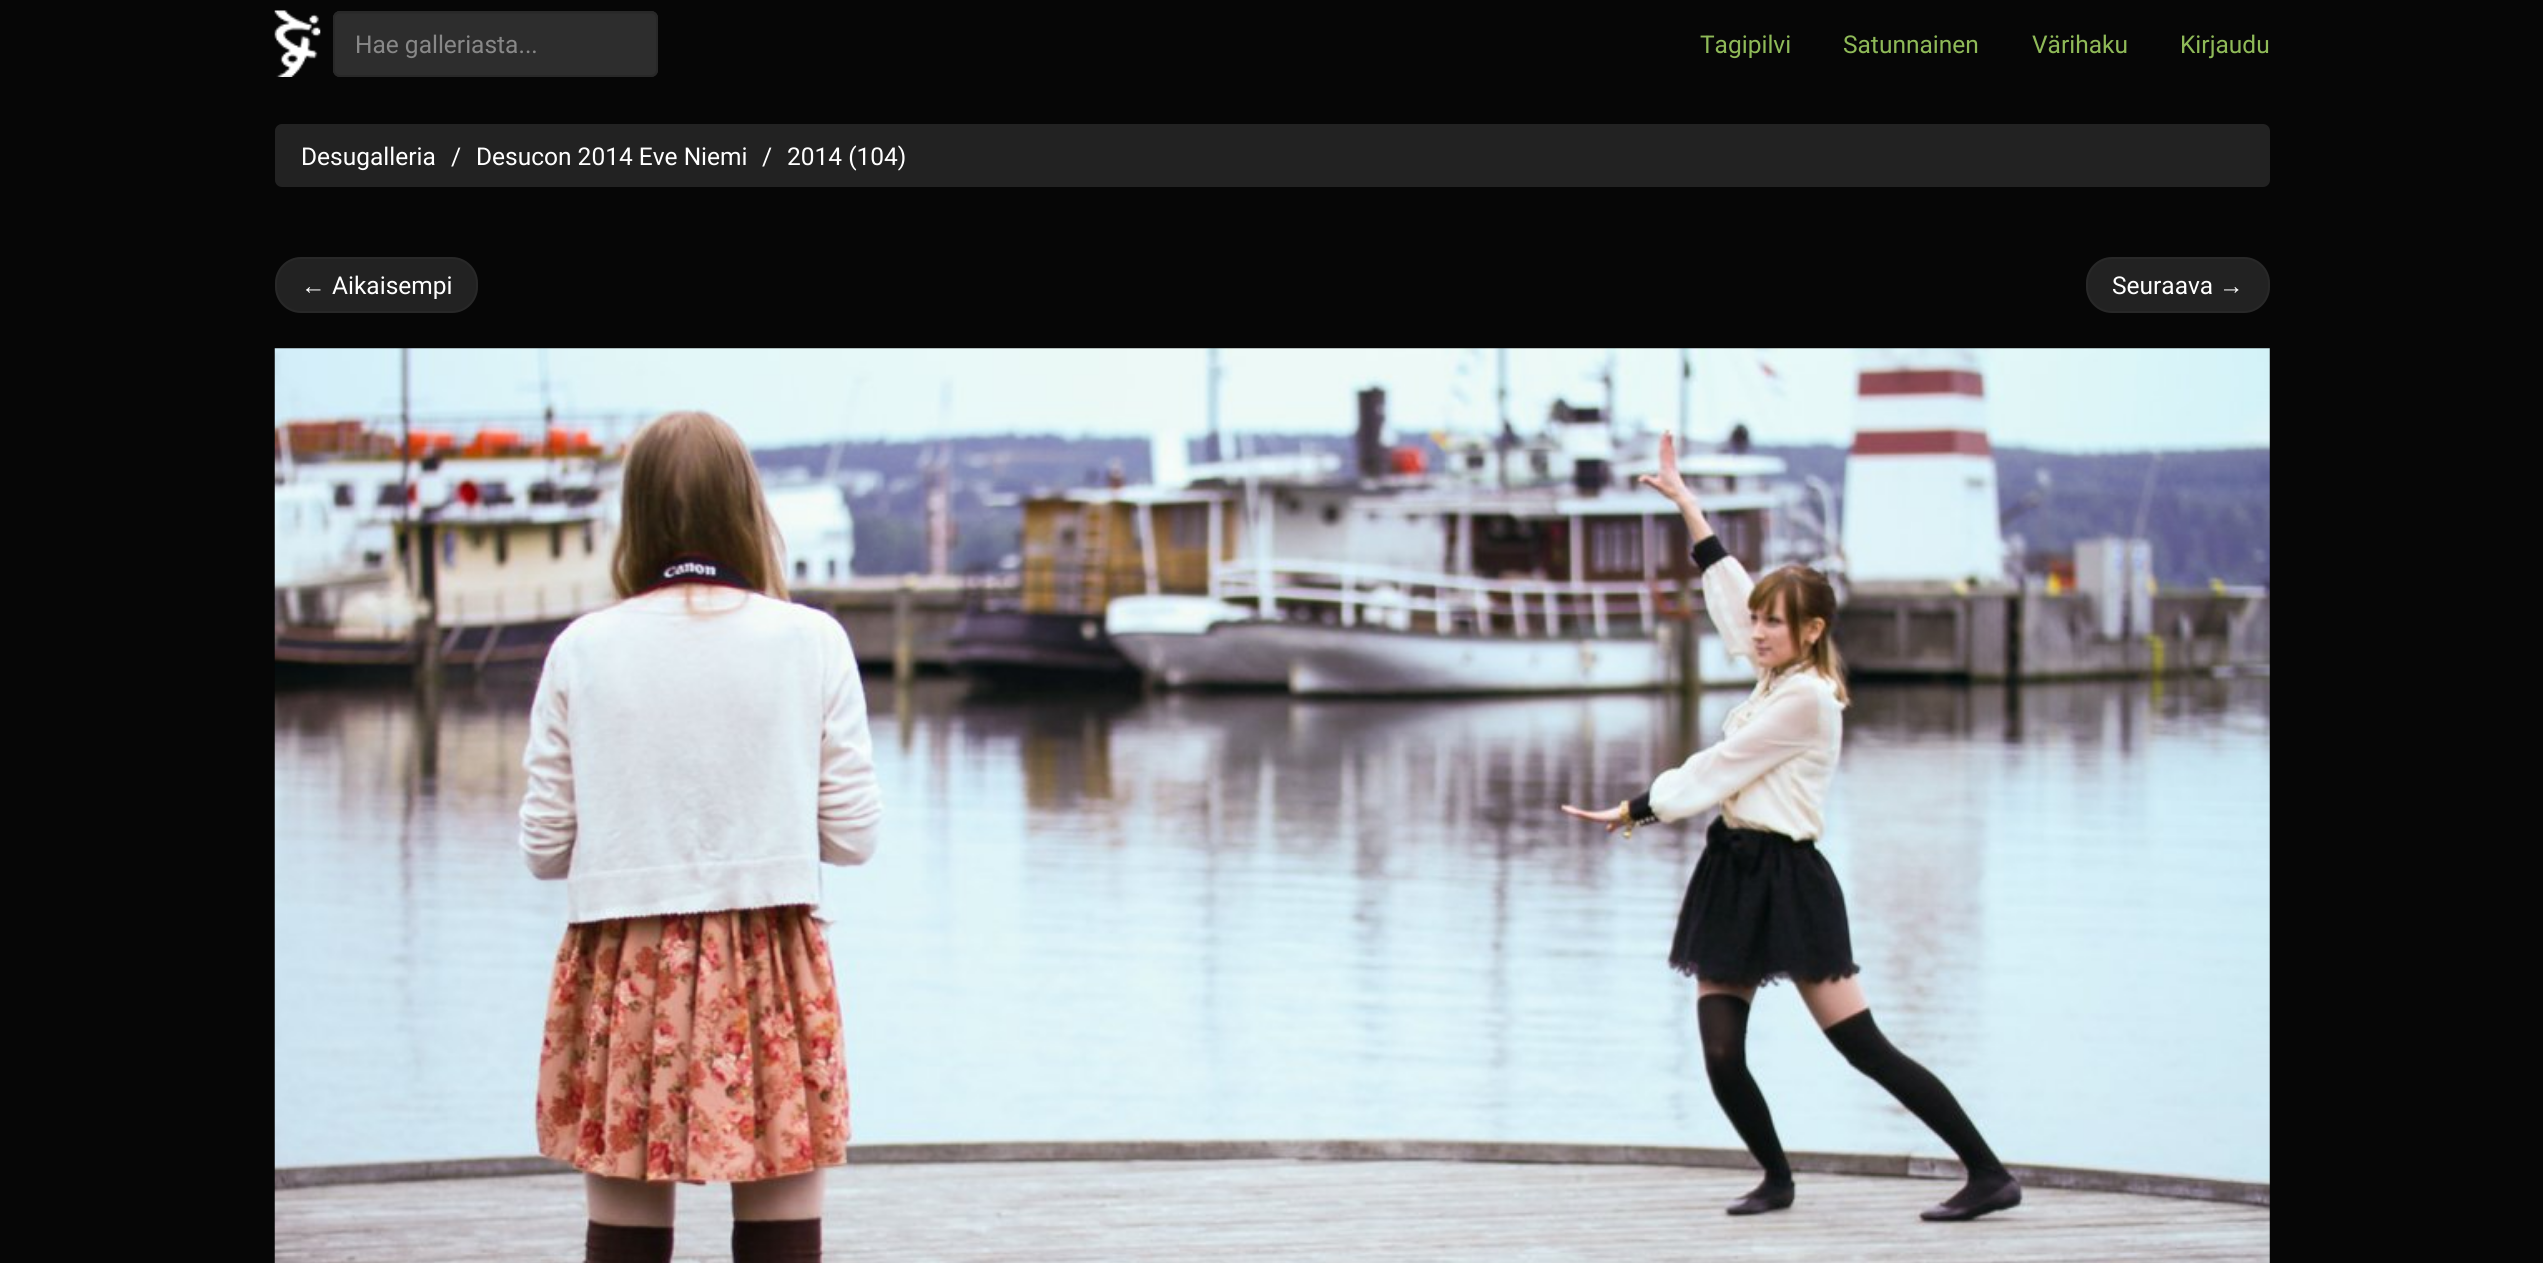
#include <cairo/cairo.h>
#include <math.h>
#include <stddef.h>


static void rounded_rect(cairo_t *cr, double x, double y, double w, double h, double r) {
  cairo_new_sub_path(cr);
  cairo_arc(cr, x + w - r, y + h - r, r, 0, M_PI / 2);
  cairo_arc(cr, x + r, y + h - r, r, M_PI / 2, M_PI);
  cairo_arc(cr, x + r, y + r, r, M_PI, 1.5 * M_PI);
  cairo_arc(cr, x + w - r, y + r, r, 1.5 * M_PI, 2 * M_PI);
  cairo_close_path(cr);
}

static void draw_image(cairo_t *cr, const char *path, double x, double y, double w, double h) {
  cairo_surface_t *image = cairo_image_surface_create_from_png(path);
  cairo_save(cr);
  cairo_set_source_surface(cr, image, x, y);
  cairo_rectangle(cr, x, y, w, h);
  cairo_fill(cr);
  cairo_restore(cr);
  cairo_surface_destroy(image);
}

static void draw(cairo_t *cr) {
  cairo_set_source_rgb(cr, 6 / 255.0, 6 / 255.0, 6 / 255.0);
  cairo_paint(cr);
  draw_image(cr, "images/1.png", 274, 10, 47, 67);
  cairo_set_source_rgb(cr, 45 / 255.0, 45 / 255.0, 45 / 255.0);
  rounded_rect(cr, 333, 11, 325, 66, 7);
  cairo_fill(cr);
  cairo_set_source_rgb(cr, 42 / 255.0, 42 / 255.0, 42 / 255.0);
  cairo_new_path(cr);
  cairo_move_to(cr, 340, 14);
  cairo_line_to(cr, 651, 14);
  cairo_curve_to(cr, 654, 14, 656, 16, 656, 19);
  cairo_line_to(cr, 656, 17);
  cairo_curve_to(cr, 656, 14, 654, 12, 651, 12);
  cairo_line_to(cr, 339, 12);
  cairo_curve_to(cr, 336, 12, 334, 14, 334, 17);
  cairo_line_to(cr, 334, 19);
  cairo_curve_to(cr, 334, 16, 337, 14, 340, 14);
  cairo_close_path(cr);
  cairo_fill(cr);
  rounded_rect(cr, 334, 12, 323, 64, 6);
  cairo_set_source_rgb(cr, 40 / 255.0, 40 / 255.0, 40 / 255.0);
  cairo_stroke(cr);
  cairo_set_source_rgb(cr, 34 / 255.0, 34 / 255.0, 34 / 255.0);
  rounded_rect(cr, 275, 124, 1995, 63, 7);
  cairo_fill(cr);
  rounded_rect(cr, 276, 258, 201, 54, 25);
  cairo_fill_preserve(cr);
  cairo_set_source_rgb(cr, 40 / 255.0, 40 / 255.0, 40 / 255.0);
  cairo_stroke(cr);
  cairo_set_source_rgb(cr, 34 / 255.0, 34 / 255.0, 34 / 255.0);
  rounded_rect(cr, 2087, 258, 182, 54, 25);
  cairo_fill_preserve(cr);
  cairo_set_source_rgb(cr, 40 / 255.0, 40 / 255.0, 40 / 255.0);
  cairo_stroke(cr);
  draw_image(cr, "images/2.png", 274, 348, 1996, 915);
  cairo_select_font_face(cr, "Roboto", CAIRO_FONT_SLANT_NORMAL, CAIRO_FONT_WEIGHT_NORMAL);
  cairo_set_font_size(cr, 24.5);
  cairo_set_source_rgb(cr, 136 / 255.0, 136 / 255.0, 136 / 255.0);
  cairo_move_to(cr, 355, 53);
  cairo_show_text(cr, "Hae galleriasta...");
  cairo_set_source_rgb(cr, 143 / 255.0, 186 / 255.0, 88 / 255.0);
  cairo_move_to(cr, 1700, 53);
  cairo_show_text(cr, "Tagipilvi");
  cairo_move_to(cr, 1843, 53);
  cairo_show_text(cr, "Satunnainen");
  cairo_move_to(cr, 2032, 53);
  cairo_show_text(cr, "Värihaku");
  cairo_move_to(cr, 2180, 53);
  cairo_show_text(cr, "Kirjaudu");
  cairo_set_source_rgb(cr, 1, 1, 1);
  cairo_move_to(cr, 301, 165);
  cairo_show_text(cr, "Desugalleria");
  cairo_move_to(cr, 451, 165);
  cairo_show_text(cr, "/");
  cairo_move_to(cr, 476, 165);
  cairo_show_text(cr, "Desucon 2014 Eve Niemi");
  cairo_move_to(cr, 762, 165);
  cairo_show_text(cr, "/");
  cairo_move_to(cr, 787, 165);
  cairo_show_text(cr, "2014 (104)");
  cairo_select_font_face(cr, "Liberation Sans", CAIRO_FONT_SLANT_NORMAL, CAIRO_FONT_WEIGHT_NORMAL);
  cairo_move_to(cr, 301, 294);
  cairo_show_text(cr, "←");
  cairo_select_font_face(cr, "Roboto", CAIRO_FONT_SLANT_NORMAL, CAIRO_FONT_WEIGHT_NORMAL);
  cairo_move_to(cr, 332, 294);
  cairo_show_text(cr, "Aikaisempi");
  cairo_move_to(cr, 2112, 294);
  cairo_show_text(cr, "Seuraava");
  cairo_select_font_face(cr, "Liberation Sans", CAIRO_FONT_SLANT_NORMAL, CAIRO_FONT_WEIGHT_NORMAL);
  cairo_move_to(cr, 2219, 294);
  cairo_show_text(cr, "→");
}

int main(void) {
  cairo_surface_t *surface = cairo_image_surface_create(CAIRO_FORMAT_RGB24, 2543, 1263);
  cairo_t *cr = cairo_create(surface);
  cairo_font_options_t *options = cairo_font_options_create();
  cairo_font_options_set_hint_metrics(options, CAIRO_HINT_METRICS_OFF);
  cairo_font_options_set_hint_style(options, CAIRO_HINT_STYLE_NONE);
  cairo_set_font_options(cr, options);
  cairo_set_miter_limit(cr, 4);
  draw(cr);
  cairo_surface_write_to_png(surface, "out.png");
  cairo_font_options_destroy(options);
  cairo_destroy(cr);
  cairo_surface_destroy(surface);
  return 0;
}
